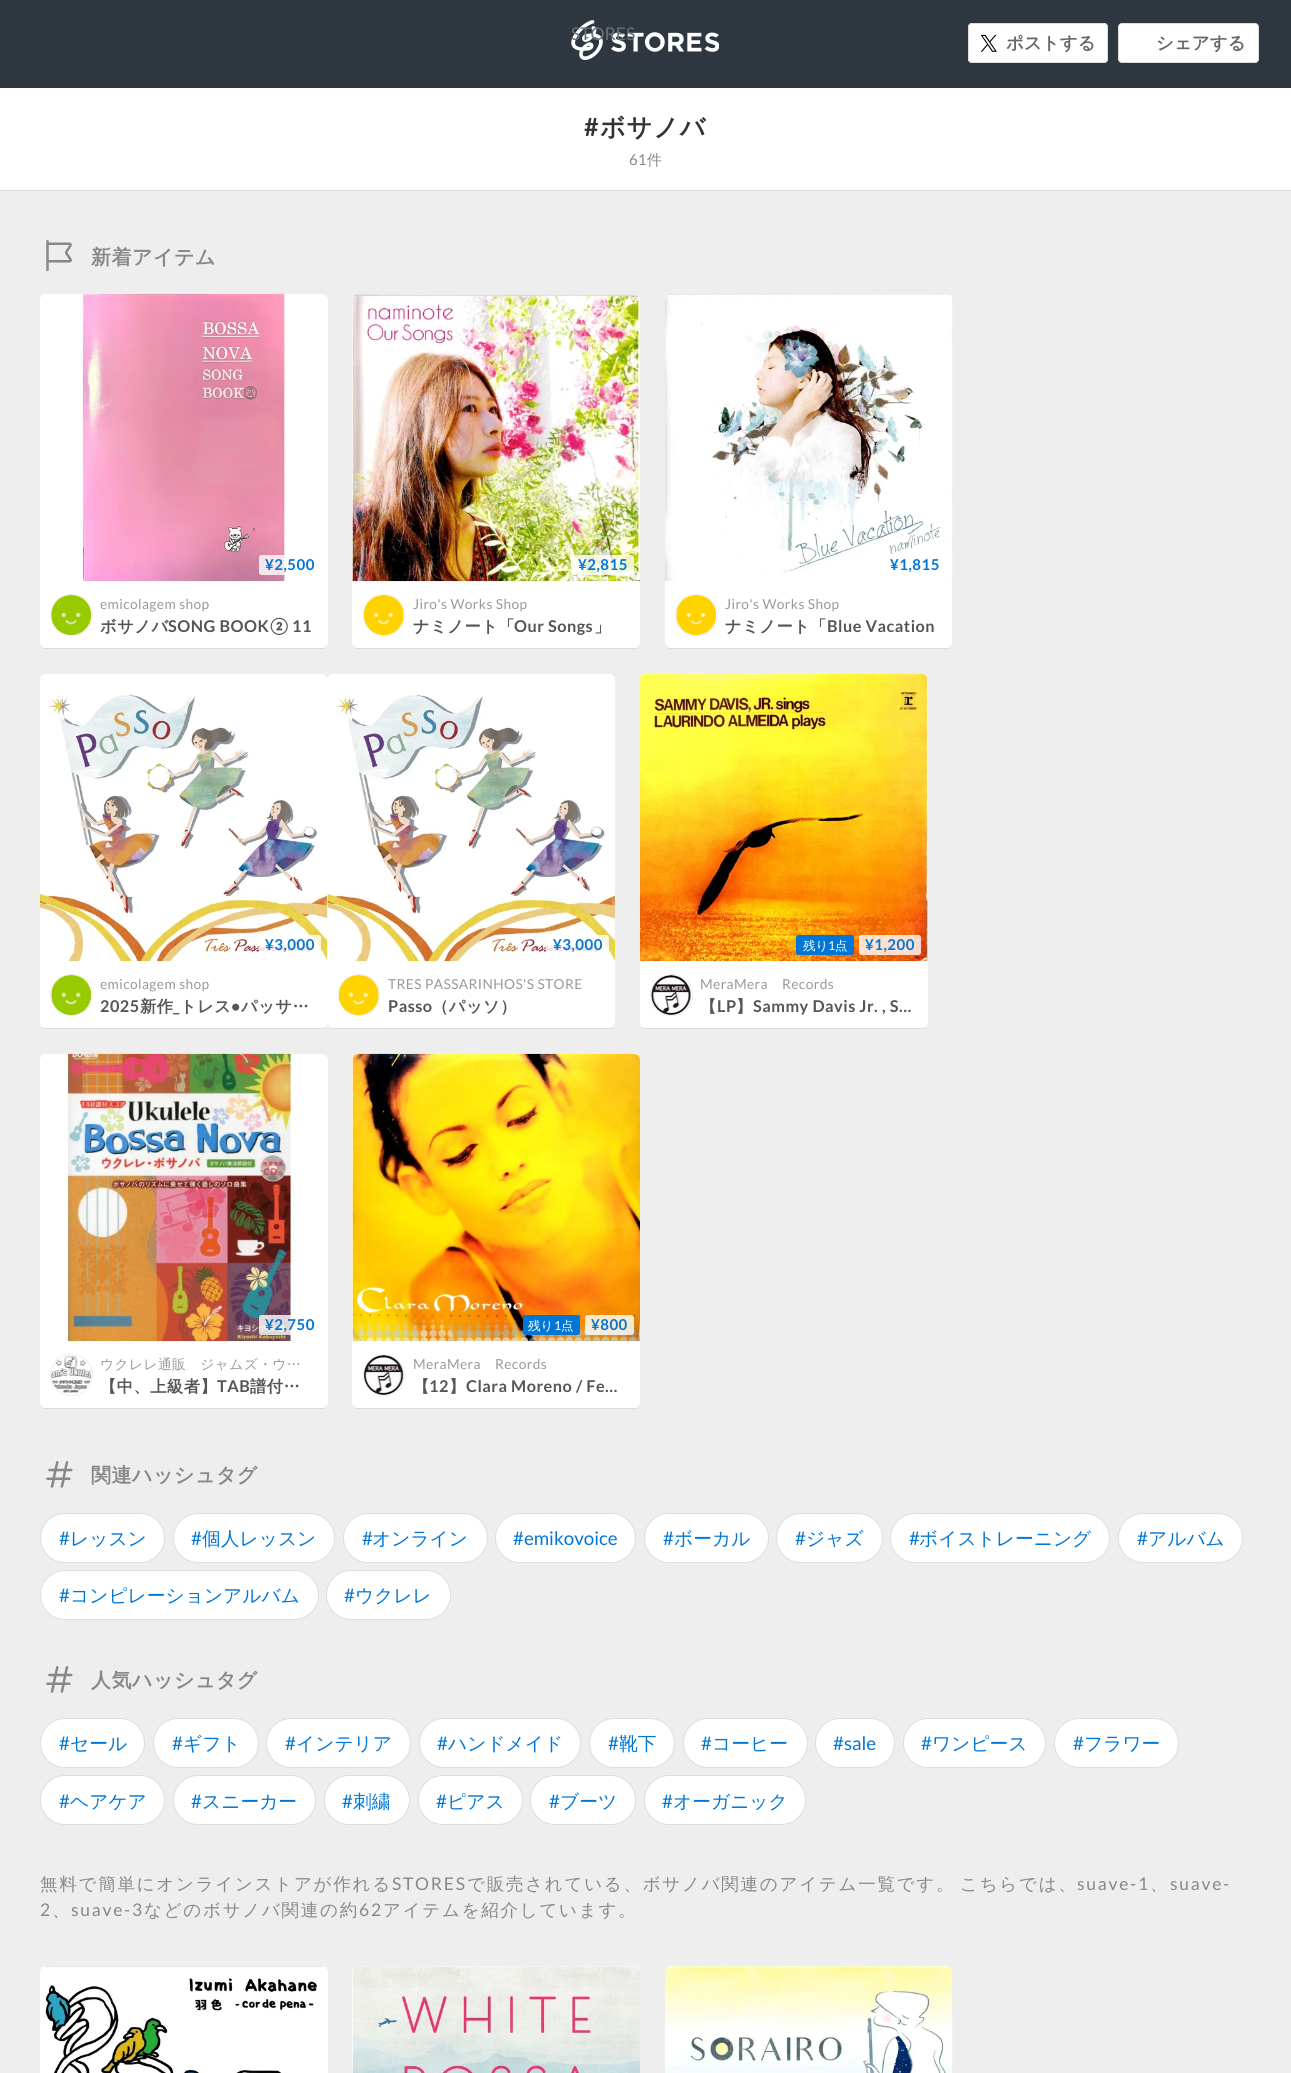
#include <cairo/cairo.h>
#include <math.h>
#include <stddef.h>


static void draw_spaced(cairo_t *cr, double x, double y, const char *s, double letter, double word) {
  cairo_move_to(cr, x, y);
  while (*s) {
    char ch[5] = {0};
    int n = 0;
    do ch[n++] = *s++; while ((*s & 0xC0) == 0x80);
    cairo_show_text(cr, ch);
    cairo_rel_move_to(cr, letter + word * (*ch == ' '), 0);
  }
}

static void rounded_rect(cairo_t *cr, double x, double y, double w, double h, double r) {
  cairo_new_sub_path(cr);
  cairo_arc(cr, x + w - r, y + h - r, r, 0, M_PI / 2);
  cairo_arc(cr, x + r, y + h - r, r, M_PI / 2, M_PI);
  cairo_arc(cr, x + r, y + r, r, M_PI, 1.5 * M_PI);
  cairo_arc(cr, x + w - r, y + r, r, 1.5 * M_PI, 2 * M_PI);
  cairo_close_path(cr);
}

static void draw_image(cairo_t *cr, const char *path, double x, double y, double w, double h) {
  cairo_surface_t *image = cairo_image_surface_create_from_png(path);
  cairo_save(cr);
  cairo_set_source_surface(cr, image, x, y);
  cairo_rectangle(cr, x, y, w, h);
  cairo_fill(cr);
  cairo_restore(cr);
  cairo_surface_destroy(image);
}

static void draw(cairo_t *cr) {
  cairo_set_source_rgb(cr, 238 / 255.0, 238 / 255.0, 238 / 255.0);
  cairo_paint(cr);
  cairo_set_source_rgb(cr, 46 / 255.0, 55 / 255.0, 64 / 255.0);
  cairo_rectangle(cr, 0, 0, 1291, 88);
  cairo_fill(cr);
  draw_image(cr, "images/1.png", 571, 20, 148, 40);
  cairo_set_source_rgb(cr, 1, 1, 1);
  rounded_rect(cr, 968, 23, 140, 40, 4);
  cairo_fill(cr);
  draw_image(cr, "images/2.png", 980, 34, 17, 18);
  rounded_rect(cr, 968.5, 23.5, 139, 39, 3.5);
  cairo_set_source_rgb(cr, 221 / 255.0, 221 / 255.0, 221 / 255.0);
  cairo_set_line_width(cr, 1);
  cairo_stroke(cr);
  cairo_set_source_rgb(cr, 1, 1, 1);
  rounded_rect(cr, 1118.5, 23.5, 140, 39, 3.5);
  cairo_fill_preserve(cr);
  cairo_set_source_rgb(cr, 221 / 255.0, 221 / 255.0, 221 / 255.0);
  cairo_stroke(cr);
  cairo_set_source_rgb(cr, 1, 1, 1);
  cairo_rectangle(cr, 0, 88, 1291, 102);
  cairo_fill(cr);
  cairo_set_source_rgb(cr, 221 / 255.0, 221 / 255.0, 221 / 255.0);
  cairo_rectangle(cr, 0, 190, 1291, 1);
  cairo_fill(cr);
  draw_image(cr, "images/3.png", 46, 240, 26, 32);
  cairo_set_source_rgb(cr, 1, 1, 1);
  cairo_new_path(cr);
  cairo_move_to(cr, 46, 294);
  cairo_line_to(cr, 321, 294);
  cairo_curve_to(cr, 325, 294, 328, 297, 328, 300);
  cairo_line_to(cr, 328, 642);
  cairo_curve_to(cr, 328, 645, 325, 648, 321, 648);
  cairo_line_to(cr, 46, 648);
  cairo_curve_to(cr, 43, 648, 40, 645, 40, 642);
  cairo_line_to(cr, 40, 300);
  cairo_curve_to(cr, 40, 297, 43, 294, 46, 294);
  cairo_close_path(cr);
  cairo_fill(cr);
  cairo_set_source_rgb(cr, 221 / 255.0, 221 / 255.0, 221 / 255.0);
  cairo_rectangle(cr, 44, 648, 281, 1);
  cairo_fill(cr);
  draw_image(cr, "images/4.png", 40, 293, 286, 289);
  cairo_set_source_rgba(cr, 1, 1, 1, 0.8);
  rounded_rect(cr, 259, 555, 62, 20, 2.5);
  cairo_fill(cr);
  rounded_rect(cr, 50.5, 594.5, 42, 41, 20.5);
  cairo_set_source_rgb(cr, 238 / 255.0, 238 / 255.0, 238 / 255.0);
  cairo_stroke(cr);
  draw_image(cr, "images/5.png", 51, 595, 41, 40);
  cairo_set_source_rgb(cr, 1, 1, 1);
  cairo_new_path(cr);
  cairo_move_to(cr, 359, 294);
  cairo_line_to(cr, 634, 294);
  cairo_curve_to(cr, 637, 294, 640, 297, 640, 300);
  cairo_line_to(cr, 640, 642);
  cairo_curve_to(cr, 640, 645, 637, 648, 634, 648);
  cairo_line_to(cr, 359, 648);
  cairo_curve_to(cr, 355, 648, 352, 645, 352, 642);
  cairo_line_to(cr, 352, 300);
  cairo_curve_to(cr, 352, 297, 355, 294, 359, 294);
  cairo_close_path(cr);
  cairo_fill(cr);
  cairo_set_source_rgb(cr, 221 / 255.0, 221 / 255.0, 221 / 255.0);
  cairo_rectangle(cr, 356, 648, 282, 1);
  cairo_fill(cr);
  draw_image(cr, "images/6.png", 352, 294, 288, 288);
  cairo_set_source_rgba(cr, 1, 1, 1, 0.8);
  rounded_rect(cr, 571, 555, 63, 20, 2.5);
  cairo_fill(cr);
  cairo_arc(cr, 384, 615, 20.5, 0, 2 * M_PI);
  cairo_set_source_rgb(cr, 238 / 255.0, 238 / 255.0, 238 / 255.0);
  cairo_stroke(cr);
  draw_image(cr, "images/7.png", 363, 595, 41, 40);
  cairo_set_source_rgb(cr, 1, 1, 1);
  cairo_new_path(cr);
  cairo_move_to(cr, 671, 294);
  cairo_line_to(cr, 946, 294);
  cairo_curve_to(cr, 950, 294, 952, 297, 952, 300);
  cairo_line_to(cr, 952, 642);
  cairo_curve_to(cr, 952, 645, 950, 648, 946, 648);
  cairo_line_to(cr, 671, 648);
  cairo_curve_to(cr, 668, 648, 665, 645, 665, 642);
  cairo_line_to(cr, 665, 300);
  cairo_curve_to(cr, 665, 297, 668, 294, 671, 294);
  cairo_close_path(cr);
  cairo_fill(cr);
  cairo_set_source_rgb(cr, 221 / 255.0, 221 / 255.0, 221 / 255.0);
  cairo_rectangle(cr, 669, 648, 281, 1);
  cairo_fill(cr);
  draw_image(cr, "images/8.png", 665, 294, 288, 287);
  cairo_set_source_rgba(cr, 1, 1, 1, 0.8);
  rounded_rect(cr, 884, 555, 62, 20, 2.5);
  cairo_fill(cr);
  rounded_rect(cr, 675.5, 594.5, 42, 41, 20.5);
  cairo_set_source_rgb(cr, 238 / 255.0, 238 / 255.0, 238 / 255.0);
  cairo_stroke(cr);
  draw_image(cr, "images/9.png", 676, 595, 41, 40);
  cairo_set_source_rgb(cr, 1, 1, 1);
  cairo_new_path(cr);
  cairo_move_to(cr, 46, 674);
  cairo_line_to(cr, 321, 674);
  cairo_curve_to(cr, 325, 674, 328, 677, 328, 680);
  cairo_line_to(cr, 328, 1022);
  cairo_curve_to(cr, 328, 1025, 325, 1028, 321, 1028);
  cairo_line_to(cr, 46, 1028);
  cairo_curve_to(cr, 43, 1028, 40, 1025, 40, 1022);
  cairo_line_to(cr, 40, 680);
  cairo_curve_to(cr, 40, 677, 43, 674, 46, 674);
  cairo_close_path(cr);
  cairo_fill(cr);
  cairo_set_source_rgb(cr, 221 / 255.0, 221 / 255.0, 221 / 255.0);
  cairo_rectangle(cr, 44, 1028, 281, 1);
  cairo_fill(cr);
  draw_image(cr, "images/10.png", 40, 674, 288, 288);
  cairo_set_source_rgba(cr, 1, 1, 1, 0.8);
  rounded_rect(cr, 259, 935, 62, 20, 2.5);
  cairo_fill(cr);
  rounded_rect(cr, 50.5, 974.5, 42, 41, 20.5);
  cairo_set_source_rgb(cr, 238 / 255.0, 238 / 255.0, 238 / 255.0);
  cairo_stroke(cr);
  draw_image(cr, "images/5.png", 51, 975, 41, 40);
  cairo_set_source_rgb(cr, 1, 1, 1);
  cairo_new_path(cr);
  cairo_move_to(cr, 334, 674);
  cairo_line_to(cr, 609, 674);
  cairo_curve_to(cr, 612, 674, 615, 677, 615, 680);
  cairo_line_to(cr, 615, 1022);
  cairo_curve_to(cr, 615, 1025, 612, 1028, 609, 1028);
  cairo_line_to(cr, 334, 1028);
  cairo_curve_to(cr, 330, 1028, 328, 1025, 328, 1022);
  cairo_line_to(cr, 328, 680);
  cairo_curve_to(cr, 328, 677, 330, 674, 334, 674);
  cairo_close_path(cr);
  cairo_fill(cr);
  cairo_set_source_rgb(cr, 221 / 255.0, 221 / 255.0, 221 / 255.0);
  cairo_rectangle(cr, 331, 1028, 282, 1);
  cairo_fill(cr);
  draw_image(cr, "images/11.png", 327, 674, 288, 288);
  cairo_set_source_rgba(cr, 1, 1, 1, 0.8);
  rounded_rect(cr, 546, 935, 63, 20, 2.5);
  cairo_fill(cr);
  cairo_arc(cr, 359, 995, 20.5, 0, 2 * M_PI);
  cairo_set_source_rgb(cr, 238 / 255.0, 238 / 255.0, 238 / 255.0);
  cairo_stroke(cr);
  draw_image(cr, "images/12.png", 338, 975, 41, 40);
  cairo_set_source_rgb(cr, 1, 1, 1);
  cairo_new_path(cr);
  cairo_move_to(cr, 646, 674);
  cairo_line_to(cr, 921, 674);
  cairo_curve_to(cr, 925, 674, 928, 677, 928, 680);
  cairo_line_to(cr, 928, 1022);
  cairo_curve_to(cr, 928, 1025, 925, 1028, 921, 1028);
  cairo_line_to(cr, 646, 1028);
  cairo_curve_to(cr, 643, 1028, 640, 1025, 640, 1022);
  cairo_line_to(cr, 640, 680);
  cairo_curve_to(cr, 640, 677, 643, 674, 646, 674);
  cairo_close_path(cr);
  cairo_fill(cr);
  cairo_set_source_rgb(cr, 221 / 255.0, 221 / 255.0, 221 / 255.0);
  cairo_rectangle(cr, 644, 1028, 281, 1);
  cairo_fill(cr);
  draw_image(cr, "images/13.png", 640, 673, 288, 289);
  cairo_set_source_rgb(cr, 0, 118 / 255.0, 215 / 255.0);
  rounded_rect(cr, 796, 935, 58, 20, 2.5);
  cairo_fill(cr);
  cairo_set_source_rgba(cr, 1, 1, 1, 0.8);
  rounded_rect(cr, 859, 935, 62, 20, 2.5);
  cairo_fill(cr);
  rounded_rect(cr, 650.5, 974.5, 42, 41, 20.5);
  cairo_set_source_rgb(cr, 238 / 255.0, 238 / 255.0, 238 / 255.0);
  cairo_stroke(cr);
  draw_image(cr, "images/14.png", 651, 975, 40, 40);
  cairo_set_source_rgb(cr, 1, 1, 1);
  cairo_new_path(cr);
  cairo_move_to(cr, 46, 1054);
  cairo_line_to(cr, 321, 1054);
  cairo_curve_to(cr, 325, 1054, 328, 1057, 328, 1060);
  cairo_line_to(cr, 328, 1402);
  cairo_curve_to(cr, 328, 1405, 325, 1408, 321, 1408);
  cairo_line_to(cr, 46, 1408);
  cairo_curve_to(cr, 43, 1408, 40, 1405, 40, 1402);
  cairo_line_to(cr, 40, 1060);
  cairo_curve_to(cr, 40, 1057, 43, 1054, 46, 1054);
  cairo_close_path(cr);
  cairo_fill(cr);
  cairo_set_source_rgb(cr, 221 / 255.0, 221 / 255.0, 221 / 255.0);
  cairo_rectangle(cr, 44, 1408, 281, 1);
  cairo_fill(cr);
  draw_image(cr, "images/15.png", 40, 1053, 286, 289);
  cairo_set_source_rgba(cr, 1, 1, 1, 0.8);
  rounded_rect(cr, 259, 1315, 62, 20, 2.5);
  cairo_fill(cr);
  rounded_rect(cr, 50.5, 1354.5, 42, 41, 20.5);
  cairo_set_source_rgb(cr, 238 / 255.0, 238 / 255.0, 238 / 255.0);
  cairo_stroke(cr);
  draw_image(cr, "images/16.png", 51, 1356, 41, 37);
  cairo_set_source_rgb(cr, 1, 1, 1);
  cairo_new_path(cr);
  cairo_move_to(cr, 359, 1054);
  cairo_line_to(cr, 634, 1054);
  cairo_curve_to(cr, 637, 1054, 640, 1057, 640, 1060);
  cairo_line_to(cr, 640, 1402);
  cairo_curve_to(cr, 640, 1405, 637, 1408, 634, 1408);
  cairo_line_to(cr, 359, 1408);
  cairo_curve_to(cr, 355, 1408, 352, 1405, 352, 1402);
  cairo_line_to(cr, 352, 1060);
  cairo_curve_to(cr, 352, 1057, 355, 1054, 359, 1054);
  cairo_close_path(cr);
  cairo_fill(cr);
  cairo_set_source_rgb(cr, 221 / 255.0, 221 / 255.0, 221 / 255.0);
  cairo_rectangle(cr, 356, 1408, 282, 1);
  cairo_fill(cr);
  draw_image(cr, "images/17.png", 352, 1053, 288, 289);
  cairo_set_source_rgb(cr, 0, 118 / 255.0, 215 / 255.0);
  rounded_rect(cr, 523, 1315, 57, 20, 2.5);
  cairo_fill(cr);
  cairo_set_source_rgba(cr, 1, 1, 1, 0.8);
  rounded_rect(cr, 585, 1315, 49, 20, 2.5);
  cairo_fill(cr);
  cairo_arc(cr, 384, 1375, 20.5, 0, 2 * M_PI);
  cairo_set_source_rgb(cr, 238 / 255.0, 238 / 255.0, 238 / 255.0);
  cairo_stroke(cr);
  draw_image(cr, "images/18.png", 363, 1355, 41, 40);
  draw_image(cr, "images/19.png", 46, 1461, 27, 27);
  cairo_set_source_rgb(cr, 1, 1, 1);
  rounded_rect(cr, 40.5, 1513.5, 124, 49, 24.5);
  cairo_fill_preserve(cr);
  cairo_set_source_rgb(cr, 222 / 255.0, 222 / 255.0, 222 / 255.0);
  cairo_stroke(cr);
  cairo_set_source_rgb(cr, 1, 1, 1);
  rounded_rect(cr, 173.5, 1513.5, 161, 49, 24.5);
  cairo_fill_preserve(cr);
  cairo_set_source_rgb(cr, 222 / 255.0, 222 / 255.0, 222 / 255.0);
  cairo_stroke(cr);
  cairo_set_source_rgb(cr, 1, 1, 1);
  rounded_rect(cr, 343.5, 1513.5, 144, 49, 24.5);
  cairo_fill_preserve(cr);
  cairo_set_source_rgb(cr, 222 / 255.0, 222 / 255.0, 222 / 255.0);
  cairo_stroke(cr);
  cairo_set_source_rgb(cr, 1, 1, 1);
  rounded_rect(cr, 495.5, 1513.5, 140, 49, 24.5);
  cairo_fill_preserve(cr);
  cairo_set_source_rgb(cr, 222 / 255.0, 222 / 255.0, 222 / 255.0);
  cairo_stroke(cr);
  cairo_set_source_rgb(cr, 1, 1, 1);
  rounded_rect(cr, 644.5, 1513.5, 124, 49, 24.5);
  cairo_fill_preserve(cr);
  cairo_set_source_rgb(cr, 222 / 255.0, 222 / 255.0, 222 / 255.0);
  cairo_stroke(cr);
  cairo_set_source_rgb(cr, 1, 1, 1);
  rounded_rect(cr, 776.5, 1513.5, 106, 49, 24.5);
  cairo_fill_preserve(cr);
  cairo_set_source_rgb(cr, 222 / 255.0, 222 / 255.0, 222 / 255.0);
  cairo_stroke(cr);
  cairo_set_source_rgb(cr, 1, 1, 1);
  rounded_rect(cr, 890.5, 1513.5, 219, 49, 24.5);
  cairo_fill_preserve(cr);
  cairo_set_source_rgb(cr, 222 / 255.0, 222 / 255.0, 222 / 255.0);
  cairo_stroke(cr);
  cairo_set_source_rgb(cr, 1, 1, 1);
  rounded_rect(cr, 1118.5, 1513.5, 124, 49, 24.5);
  cairo_fill_preserve(cr);
  cairo_set_source_rgb(cr, 222 / 255.0, 222 / 255.0, 222 / 255.0);
  cairo_stroke(cr);
  cairo_set_source_rgb(cr, 1, 1, 1);
  rounded_rect(cr, 40.5, 1570.5, 278, 49, 24.5);
  cairo_fill_preserve(cr);
  cairo_set_source_rgb(cr, 222 / 255.0, 222 / 255.0, 222 / 255.0);
  cairo_stroke(cr);
  cairo_set_source_rgb(cr, 1, 1, 1);
  rounded_rect(cr, 326.5, 1570.5, 124, 49, 24.5);
  cairo_fill_preserve(cr);
  cairo_set_source_rgb(cr, 222 / 255.0, 222 / 255.0, 222 / 255.0);
  cairo_stroke(cr);
  draw_image(cr, "images/19.png", 46, 1666, 27, 27);
  cairo_set_source_rgb(cr, 1, 1, 1);
  rounded_rect(cr, 40.5, 1718.5, 104, 49, 24.5);
  cairo_fill_preserve(cr);
  cairo_set_source_rgb(cr, 222 / 255.0, 222 / 255.0, 222 / 255.0);
  cairo_stroke(cr);
  cairo_set_source_rgb(cr, 1, 1, 1);
  rounded_rect(cr, 153.5, 1718.5, 105, 49, 24.5);
  cairo_fill_preserve(cr);
  cairo_set_source_rgb(cr, 222 / 255.0, 222 / 255.0, 222 / 255.0);
  cairo_stroke(cr);
  cairo_set_source_rgb(cr, 1, 1, 1);
  rounded_rect(cr, 266.5, 1718.5, 144, 49, 24.5);
  cairo_fill_preserve(cr);
  cairo_set_source_rgb(cr, 222 / 255.0, 222 / 255.0, 222 / 255.0);
  cairo_stroke(cr);
  cairo_set_source_rgb(cr, 1, 1, 1);
  rounded_rect(cr, 419.5, 1718.5, 161, 49, 24.5);
  cairo_fill_preserve(cr);
  cairo_set_source_rgb(cr, 222 / 255.0, 222 / 255.0, 222 / 255.0);
  cairo_stroke(cr);
  cairo_set_source_rgb(cr, 1, 1, 1);
  rounded_rect(cr, 589.5, 1718.5, 85, 49, 24.5);
  cairo_fill_preserve(cr);
  cairo_set_source_rgb(cr, 222 / 255.0, 222 / 255.0, 222 / 255.0);
  cairo_stroke(cr);
  cairo_set_source_rgb(cr, 1, 1, 1);
  rounded_rect(cr, 683.5, 1718.5, 124, 49, 24.5);
  cairo_fill_preserve(cr);
  cairo_set_source_rgb(cr, 222 / 255.0, 222 / 255.0, 222 / 255.0);
  cairo_stroke(cr);
  cairo_set_source_rgb(cr, 1, 1, 1);
  rounded_rect(cr, 815.5, 1718.5, 79, 49, 24.5);
  cairo_fill_preserve(cr);
  cairo_set_source_rgb(cr, 222 / 255.0, 222 / 255.0, 222 / 255.0);
  cairo_stroke(cr);
  cairo_set_source_rgb(cr, 1, 1, 1);
  rounded_rect(cr, 903.5, 1718.5, 142, 49, 24.5);
  cairo_fill_preserve(cr);
  cairo_set_source_rgb(cr, 222 / 255.0, 222 / 255.0, 222 / 255.0);
  cairo_stroke(cr);
  cairo_set_source_rgb(cr, 1, 1, 1);
  rounded_rect(cr, 1054.5, 1718.5, 124, 49, 24.5);
  cairo_fill_preserve(cr);
  cairo_set_source_rgb(cr, 222 / 255.0, 222 / 255.0, 222 / 255.0);
  cairo_stroke(cr);
  cairo_set_source_rgb(cr, 1, 1, 1);
  rounded_rect(cr, 40.5, 1775.5, 124, 49, 24.5);
  cairo_fill_preserve(cr);
  cairo_set_source_rgb(cr, 222 / 255.0, 222 / 255.0, 222 / 255.0);
  cairo_stroke(cr);
  cairo_set_source_rgb(cr, 1, 1, 1);
  rounded_rect(cr, 173.5, 1775.5, 142, 49, 24.5);
  cairo_fill_preserve(cr);
  cairo_set_source_rgb(cr, 222 / 255.0, 222 / 255.0, 222 / 255.0);
  cairo_stroke(cr);
  cairo_set_source_rgb(cr, 1, 1, 1);
  rounded_rect(cr, 324.5, 1775.5, 85, 49, 24.5);
  cairo_fill_preserve(cr);
  cairo_set_source_rgb(cr, 222 / 255.0, 222 / 255.0, 222 / 255.0);
  cairo_stroke(cr);
  cairo_set_source_rgb(cr, 1, 1, 1);
  rounded_rect(cr, 418.5, 1775.5, 104, 49, 24.5);
  cairo_fill_preserve(cr);
  cairo_set_source_rgb(cr, 222 / 255.0, 222 / 255.0, 222 / 255.0);
  cairo_stroke(cr);
  cairo_set_source_rgb(cr, 1, 1, 1);
  rounded_rect(cr, 530.5, 1775.5, 105, 49, 24.5);
  cairo_fill_preserve(cr);
  cairo_set_source_rgb(cr, 222 / 255.0, 222 / 255.0, 222 / 255.0);
  cairo_stroke(cr);
  cairo_set_source_rgb(cr, 1, 1, 1);
  rounded_rect(cr, 644.5, 1775.5, 161, 49, 24.5);
  cairo_fill_preserve(cr);
  cairo_set_source_rgb(cr, 222 / 255.0, 222 / 255.0, 222 / 255.0);
  cairo_stroke(cr);
  cairo_set_source_rgb(cr, 1, 1, 1);
  cairo_new_path(cr);
  cairo_move_to(cr, 46, 1966);
  cairo_line_to(cr, 321, 1966);
  cairo_curve_to(cr, 325, 1966, 328, 1969, 328, 1972);
  cairo_line_to(cr, 328, 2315);
  cairo_curve_to(cr, 328, 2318, 325, 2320, 321, 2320);
  cairo_line_to(cr, 46, 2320);
  cairo_curve_to(cr, 43, 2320, 40, 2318, 40, 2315);
  cairo_line_to(cr, 40, 1972);
  cairo_curve_to(cr, 40, 1969, 43, 1966, 46, 1966);
  cairo_close_path(cr);
  cairo_fill(cr);
  draw_image(cr, "images/20.png", 44, 1966, 280, 107);
  cairo_new_path(cr);
  cairo_move_to(cr, 359, 1966);
  cairo_line_to(cr, 634, 1966);
  cairo_curve_to(cr, 637, 1966, 640, 1969, 640, 1972);
  cairo_line_to(cr, 640, 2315);
  cairo_curve_to(cr, 640, 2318, 637, 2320, 634, 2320);
  cairo_line_to(cr, 359, 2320);
  cairo_curve_to(cr, 355, 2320, 352, 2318, 352, 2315);
  cairo_line_to(cr, 352, 1972);
  cairo_curve_to(cr, 352, 1969, 355, 1966, 359, 1966);
  cairo_close_path(cr);
  cairo_fill(cr);
  draw_image(cr, "images/21.png", 352, 1966, 288, 107);
  cairo_new_path(cr);
  cairo_move_to(cr, 671, 1966);
  cairo_line_to(cr, 946, 1966);
  cairo_curve_to(cr, 950, 1966, 952, 1969, 952, 1972);
  cairo_line_to(cr, 952, 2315);
  cairo_curve_to(cr, 952, 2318, 950, 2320, 946, 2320);
  cairo_line_to(cr, 671, 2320);
  cairo_curve_to(cr, 668, 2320, 665, 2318, 665, 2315);
  cairo_line_to(cr, 665, 1972);
  cairo_curve_to(cr, 665, 1969, 668, 1966, 671, 1966);
  cairo_close_path(cr);
  cairo_fill(cr);
  draw_image(cr, "images/22.png", 665, 1966, 288, 107);
  cairo_select_font_face(cr, "Lato", CAIRO_FONT_SLANT_NORMAL, CAIRO_FONT_WEIGHT_NORMAL);
  cairo_set_font_size(cr, 17.5);
  cairo_set_source_rgb(cr, 107 / 255.0, 113 / 255.0, 119 / 255.0);
  cairo_move_to(cr, 571, 40);
  cairo_show_text(cr, "STORES");
  cairo_select_font_face(cr, "WenQuanYi Zen Hei", CAIRO_FONT_SLANT_NORMAL, CAIRO_FONT_WEIGHT_BOLD);
  cairo_set_source_rgb(cr, 102 / 255.0, 102 / 255.0, 102 / 255.0);
  cairo_move_to(cr, 1006, 49);
  cairo_show_text(cr, "ポストする");
  cairo_move_to(cr, 1156, 49);
  cairo_show_text(cr, "シェアする");
  cairo_select_font_face(cr, "Lato", CAIRO_FONT_SLANT_NORMAL, CAIRO_FONT_WEIGHT_BOLD);
  cairo_set_font_size(cr, 25);
  cairo_set_source_rgb(cr, 51 / 255.0, 51 / 255.0, 51 / 255.0);
  draw_spaced(cr, 584, 136, "#", 1, 0);
  cairo_select_font_face(cr, "WenQuanYi Zen Hei", CAIRO_FONT_SLANT_NORMAL, CAIRO_FONT_WEIGHT_BOLD);
  draw_spaced(cr, 600, 136, "ボサノバ", 1, 0);
  cairo_select_font_face(cr, "Lato", CAIRO_FONT_SLANT_NORMAL, CAIRO_FONT_WEIGHT_NORMAL);
  cairo_set_font_size(cr, 15);
  cairo_set_source_rgb(cr, 136 / 255.0, 136 / 255.0, 136 / 255.0);
  cairo_move_to(cr, 629, 165);
  cairo_show_text(cr, "61");
  cairo_select_font_face(cr, "WenQuanYi Zen Hei Medium", CAIRO_FONT_SLANT_NORMAL, CAIRO_FONT_WEIGHT_NORMAL);
  cairo_move_to(cr, 647, 165);
  cairo_show_text(cr, "件");
  cairo_select_font_face(cr, "WenQuanYi Zen Hei", CAIRO_FONT_SLANT_NORMAL, CAIRO_FONT_WEIGHT_BOLD);
  cairo_set_font_size(cr, 20);
  draw_spaced(cr, 91, 264, "新着アイテム", 0.5, 0);
  cairo_select_font_face(cr, "Lato", CAIRO_FONT_SLANT_NORMAL, CAIRO_FONT_WEIGHT_BOLD);
  cairo_set_font_size(cr, 15);
  cairo_set_source_rgb(cr, 0, 118 / 255.0, 215 / 255.0);
  draw_spaced(cr, 265, 570, "¥2,500", 0.5, 0);
  cairo_select_font_face(cr, "Lato", CAIRO_FONT_SLANT_NORMAL, CAIRO_FONT_WEIGHT_NORMAL);
  cairo_set_font_size(cr, 13.75);
  cairo_set_source_rgb(cr, 153 / 255.0, 153 / 255.0, 153 / 255.0);
  draw_spaced(cr, 100, 609, "emicolagem shop", 0.4, 0);
  cairo_select_font_face(cr, "WenQuanYi Zen Hei", CAIRO_FONT_SLANT_NORMAL, CAIRO_FONT_WEIGHT_BOLD);
  cairo_set_font_size(cr, 16.25);
  cairo_set_source_rgb(cr, 85 / 255.0, 85 / 255.0, 85 / 255.0);
  draw_spaced(cr, 100, 632, "ボサノバ", 0.5, 0);
  cairo_select_font_face(cr, "Lato", CAIRO_FONT_SLANT_NORMAL, CAIRO_FONT_WEIGHT_BOLD);
  draw_spaced(cr, 168, 632, "SONG BOOK", 0.5, 0);
  cairo_select_font_face(cr, "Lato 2", CAIRO_FONT_SLANT_NORMAL, CAIRO_FONT_WEIGHT_BOLD);
  draw_spaced(cr, 270, 632, "②", 0.5, 0);
  cairo_select_font_face(cr, "Lato", CAIRO_FONT_SLANT_NORMAL, CAIRO_FONT_WEIGHT_BOLD);
  draw_spaced(cr, 292, 632, "11", 0.5, 0);
  cairo_set_font_size(cr, 15);
  cairo_set_source_rgb(cr, 0, 118 / 255.0, 215 / 255.0);
  draw_spaced(cr, 578, 570, "¥2,815", 0.5, 0);
  cairo_select_font_face(cr, "Lato", CAIRO_FONT_SLANT_NORMAL, CAIRO_FONT_WEIGHT_NORMAL);
  cairo_set_font_size(cr, 13.75);
  cairo_set_source_rgb(cr, 153 / 255.0, 153 / 255.0, 153 / 255.0);
  draw_spaced(cr, 413, 609, "Jiro's Works Shop", 0.4, 0);
  cairo_select_font_face(cr, "WenQuanYi Zen Hei", CAIRO_FONT_SLANT_NORMAL, CAIRO_FONT_WEIGHT_BOLD);
  cairo_set_font_size(cr, 16.25);
  cairo_set_source_rgb(cr, 85 / 255.0, 85 / 255.0, 85 / 255.0);
  draw_spaced(cr, 413, 632, "ナミノート「", 0.5, 0);
  cairo_select_font_face(cr, "Lato", CAIRO_FONT_SLANT_NORMAL, CAIRO_FONT_WEIGHT_BOLD);
  draw_spaced(cr, 514, 632, "Our Songs", 0.5, 0);
  cairo_select_font_face(cr, "WenQuanYi Zen Hei", CAIRO_FONT_SLANT_NORMAL, CAIRO_FONT_WEIGHT_BOLD);
  draw_spaced(cr, 594, 632, "」", 0.5, 0);
  cairo_select_font_face(cr, "Lato", CAIRO_FONT_SLANT_NORMAL, CAIRO_FONT_WEIGHT_BOLD);
  cairo_set_font_size(cr, 15);
  cairo_set_source_rgb(cr, 0, 118 / 255.0, 215 / 255.0);
  draw_spaced(cr, 890, 570, "¥1,815", 0.5, 0);
  cairo_select_font_face(cr, "Lato", CAIRO_FONT_SLANT_NORMAL, CAIRO_FONT_WEIGHT_NORMAL);
  cairo_set_font_size(cr, 13.75);
  cairo_set_source_rgb(cr, 153 / 255.0, 153 / 255.0, 153 / 255.0);
  draw_spaced(cr, 725, 609, "Jiro's Works Shop", 0.4, 0);
  cairo_select_font_face(cr, "WenQuanYi Zen Hei", CAIRO_FONT_SLANT_NORMAL, CAIRO_FONT_WEIGHT_BOLD);
  cairo_set_font_size(cr, 16.25);
  cairo_set_source_rgb(cr, 85 / 255.0, 85 / 255.0, 85 / 255.0);
  draw_spaced(cr, 725, 632, "ナミノート「", 0.5, 0);
  cairo_select_font_face(cr, "Lato", CAIRO_FONT_SLANT_NORMAL, CAIRO_FONT_WEIGHT_BOLD);
  draw_spaced(cr, 827, 632, "Blue Vacation", 0.5, 0);
  cairo_set_font_size(cr, 15);
  cairo_set_source_rgb(cr, 0, 118 / 255.0, 215 / 255.0);
  draw_spaced(cr, 265, 950, "¥3,000", 0.5, 0);
  cairo_select_font_face(cr, "Lato", CAIRO_FONT_SLANT_NORMAL, CAIRO_FONT_WEIGHT_NORMAL);
  cairo_set_font_size(cr, 13.75);
  cairo_set_source_rgb(cr, 153 / 255.0, 153 / 255.0, 153 / 255.0);
  draw_spaced(cr, 100, 989, "emicolagem shop", 0.4, 0);
  cairo_select_font_face(cr, "Lato", CAIRO_FONT_SLANT_NORMAL, CAIRO_FONT_WEIGHT_BOLD);
  cairo_set_font_size(cr, 16.25);
  cairo_set_source_rgb(cr, 85 / 255.0, 85 / 255.0, 85 / 255.0);
  draw_spaced(cr, 100, 1012, "2025", 0.5, 0);
  cairo_select_font_face(cr, "WenQuanYi Zen Hei", CAIRO_FONT_SLANT_NORMAL, CAIRO_FONT_WEIGHT_BOLD);
  draw_spaced(cr, 140, 1012, "新作", 0.5, 0);
  draw_spaced(cr, 180, 1012, "トレス", 0.5, 0);
  cairo_select_font_face(cr, "Lato", CAIRO_FONT_SLANT_NORMAL, CAIRO_FONT_WEIGHT_BOLD);
  draw_spaced(cr, 231, 1012, "•", 0.5, 0);
  cairo_select_font_face(cr, "WenQuanYi Zen Hei", CAIRO_FONT_SLANT_NORMAL, CAIRO_FONT_WEIGHT_BOLD);
  draw_spaced(cr, 241, 1012, "パッサ…", 0.5, 0);
  cairo_select_font_face(cr, "Lato", CAIRO_FONT_SLANT_NORMAL, CAIRO_FONT_WEIGHT_BOLD);
  draw_spaced(cr, 173, 1012, "_", 0.5, 0);
  cairo_set_font_size(cr, 15);
  cairo_set_source_rgb(cr, 0, 118 / 255.0, 215 / 255.0);
  draw_spaced(cr, 553, 950, "¥3,000", 0.5, 0);
  cairo_select_font_face(cr, "Lato", CAIRO_FONT_SLANT_NORMAL, CAIRO_FONT_WEIGHT_NORMAL);
  cairo_set_font_size(cr, 13.75);
  cairo_set_source_rgb(cr, 153 / 255.0, 153 / 255.0, 153 / 255.0);
  draw_spaced(cr, 388, 989, "TRES PASSARINHOS'S STORE", 0.4, 0);
  cairo_select_font_face(cr, "Lato", CAIRO_FONT_SLANT_NORMAL, CAIRO_FONT_WEIGHT_BOLD);
  cairo_set_font_size(cr, 16.25);
  cairo_set_source_rgb(cr, 85 / 255.0, 85 / 255.0, 85 / 255.0);
  draw_spaced(cr, 388, 1012, "Passo", 0.5, 0);
  cairo_select_font_face(cr, "WenQuanYi Zen Hei", CAIRO_FONT_SLANT_NORMAL, CAIRO_FONT_WEIGHT_BOLD);
  draw_spaced(cr, 432, 1012, "（パッソ）", 0.5, 0);
  cairo_select_font_face(cr, "WenQuanYi Zen Hei Medium", CAIRO_FONT_SLANT_NORMAL, CAIRO_FONT_WEIGHT_NORMAL);
  cairo_set_font_size(cr, 12.5);
  cairo_set_source_rgb(cr, 1, 1, 1);
  cairo_move_to(cr, 803, 950);
  cairo_show_text(cr, "残り");
  cairo_select_font_face(cr, "Lato", CAIRO_FONT_SLANT_NORMAL, CAIRO_FONT_WEIGHT_NORMAL);
  cairo_move_to(cr, 828, 950);
  cairo_show_text(cr, "1");
  cairo_select_font_face(cr, "WenQuanYi Zen Hei Medium", CAIRO_FONT_SLANT_NORMAL, CAIRO_FONT_WEIGHT_NORMAL);
  cairo_move_to(cr, 835, 950);
  cairo_show_text(cr, "点");
  cairo_select_font_face(cr, "Lato", CAIRO_FONT_SLANT_NORMAL, CAIRO_FONT_WEIGHT_BOLD);
  cairo_set_font_size(cr, 15);
  cairo_set_source_rgb(cr, 0, 118 / 255.0, 215 / 255.0);
  draw_spaced(cr, 865, 950, "¥1,200", 0.5, 0);
  cairo_select_font_face(cr, "Lato", CAIRO_FONT_SLANT_NORMAL, CAIRO_FONT_WEIGHT_NORMAL);
  cairo_set_font_size(cr, 13.75);
  cairo_set_source_rgb(cr, 153 / 255.0, 153 / 255.0, 153 / 255.0);
  draw_spaced(cr, 700, 989, "MeraMera", 0.4, 0);
  draw_spaced(cr, 782, 989, "Records", 0.4, 0);
  cairo_select_font_face(cr, "WenQuanYi Zen Hei", CAIRO_FONT_SLANT_NORMAL, CAIRO_FONT_WEIGHT_BOLD);
  cairo_set_font_size(cr, 16.25);
  cairo_set_source_rgb(cr, 85 / 255.0, 85 / 255.0, 85 / 255.0);
  draw_spaced(cr, 700, 1012, "【", 0.5, 0);
  cairo_select_font_face(cr, "Lato", CAIRO_FONT_SLANT_NORMAL, CAIRO_FONT_WEIGHT_BOLD);
  draw_spaced(cr, 717, 1012, "LP", 0.5, 0);
  cairo_select_font_face(cr, "WenQuanYi Zen Hei", CAIRO_FONT_SLANT_NORMAL, CAIRO_FONT_WEIGHT_BOLD);
  draw_spaced(cr, 736, 1012, "】", 0.5, 0);
  cairo_select_font_face(cr, "Lato", CAIRO_FONT_SLANT_NORMAL, CAIRO_FONT_WEIGHT_BOLD);
  draw_spaced(cr, 753, 1012, "Sammy Davis Jr. , S…", 0.5, 0);
  cairo_set_font_size(cr, 15);
  cairo_set_source_rgb(cr, 0, 118 / 255.0, 215 / 255.0);
  draw_spaced(cr, 265, 1330, "¥2,750", 0.5, 0);
  cairo_select_font_face(cr, "WenQuanYi Zen Hei Medium", CAIRO_FONT_SLANT_NORMAL, CAIRO_FONT_WEIGHT_NORMAL);
  cairo_set_font_size(cr, 13.75);
  cairo_set_source_rgb(cr, 153 / 255.0, 153 / 255.0, 153 / 255.0);
  draw_spaced(cr, 100, 1369, "ウクレレ通販　ジャムズ・ウ…", 0.4, 0);
  cairo_select_font_face(cr, "WenQuanYi Zen Hei", CAIRO_FONT_SLANT_NORMAL, CAIRO_FONT_WEIGHT_BOLD);
  cairo_set_font_size(cr, 16.25);
  cairo_set_source_rgb(cr, 85 / 255.0, 85 / 255.0, 85 / 255.0);
  draw_spaced(cr, 100, 1392, "【中、上級者】", 0.5, 0);
  cairo_select_font_face(cr, "Lato", CAIRO_FONT_SLANT_NORMAL, CAIRO_FONT_WEIGHT_BOLD);
  draw_spaced(cr, 217, 1392, "TAB", 0.5, 0);
  cairo_select_font_face(cr, "WenQuanYi Zen Hei", CAIRO_FONT_SLANT_NORMAL, CAIRO_FONT_WEIGHT_BOLD);
  draw_spaced(cr, 250, 1392, "譜付…", 0.5, 0);
  cairo_select_font_face(cr, "WenQuanYi Zen Hei Medium", CAIRO_FONT_SLANT_NORMAL, CAIRO_FONT_WEIGHT_NORMAL);
  cairo_set_font_size(cr, 12.5);
  cairo_set_source_rgb(cr, 1, 1, 1);
  cairo_move_to(cr, 528, 1330);
  cairo_show_text(cr, "残り");
  cairo_select_font_face(cr, "Lato", CAIRO_FONT_SLANT_NORMAL, CAIRO_FONT_WEIGHT_NORMAL);
  cairo_move_to(cr, 554, 1330);
  cairo_show_text(cr, "1");
  cairo_select_font_face(cr, "WenQuanYi Zen Hei Medium", CAIRO_FONT_SLANT_NORMAL, CAIRO_FONT_WEIGHT_NORMAL);
  cairo_move_to(cr, 561, 1330);
  cairo_show_text(cr, "点");
  cairo_select_font_face(cr, "Lato", CAIRO_FONT_SLANT_NORMAL, CAIRO_FONT_WEIGHT_BOLD);
  cairo_set_font_size(cr, 15);
  cairo_set_source_rgb(cr, 0, 118 / 255.0, 215 / 255.0);
  draw_spaced(cr, 591, 1330, "¥800", 0.5, 0);
  cairo_select_font_face(cr, "Lato", CAIRO_FONT_SLANT_NORMAL, CAIRO_FONT_WEIGHT_NORMAL);
  cairo_set_font_size(cr, 13.75);
  cairo_set_source_rgb(cr, 153 / 255.0, 153 / 255.0, 153 / 255.0);
  draw_spaced(cr, 413, 1369, "MeraMera", 0.4, 0);
  draw_spaced(cr, 495, 1369, "Records", 0.4, 0);
  cairo_select_font_face(cr, "WenQuanYi Zen Hei", CAIRO_FONT_SLANT_NORMAL, CAIRO_FONT_WEIGHT_BOLD);
  cairo_set_font_size(cr, 16.25);
  cairo_set_source_rgb(cr, 85 / 255.0, 85 / 255.0, 85 / 255.0);
  draw_spaced(cr, 413, 1392, "【", 0.5, 0);
  cairo_select_font_face(cr, "Lato", CAIRO_FONT_SLANT_NORMAL, CAIRO_FONT_WEIGHT_BOLD);
  draw_spaced(cr, 429, 1392, "12", 0.5, 0);
  cairo_select_font_face(cr, "WenQuanYi Zen Hei", CAIRO_FONT_SLANT_NORMAL, CAIRO_FONT_WEIGHT_BOLD);
  draw_spaced(cr, 449, 1392, "】", 0.5, 0);
  cairo_select_font_face(cr, "Lato", CAIRO_FONT_SLANT_NORMAL, CAIRO_FONT_WEIGHT_BOLD);
  draw_spaced(cr, 466, 1392, "Clara Moreno / Fe…", 0.5, 0);
  cairo_select_font_face(cr, "WenQuanYi Zen Hei", CAIRO_FONT_SLANT_NORMAL, CAIRO_FONT_WEIGHT_BOLD);
  cairo_set_font_size(cr, 20);
  cairo_set_source_rgb(cr, 136 / 255.0, 136 / 255.0, 136 / 255.0);
  draw_spaced(cr, 91, 1482, "関連ハッシュタグ", 0.5, 0);
  cairo_select_font_face(cr, "Lato", CAIRO_FONT_SLANT_NORMAL, CAIRO_FONT_WEIGHT_NORMAL);
  cairo_set_font_size(cr, 18.75);
  cairo_set_source_rgb(cr, 0, 118 / 255.0, 215 / 255.0);
  cairo_move_to(cr, 59, 1545);
  cairo_show_text(cr, "#");
  cairo_select_font_face(cr, "WenQuanYi Zen Hei Medium", CAIRO_FONT_SLANT_NORMAL, CAIRO_FONT_WEIGHT_NORMAL);
  cairo_move_to(cr, 70, 1545);
  cairo_show_text(cr, "レッスン");
  cairo_select_font_face(cr, "Lato", CAIRO_FONT_SLANT_NORMAL, CAIRO_FONT_WEIGHT_NORMAL);
  cairo_move_to(cr, 191, 1545);
  cairo_show_text(cr, "#");
  cairo_select_font_face(cr, "WenQuanYi Zen Hei Medium", CAIRO_FONT_SLANT_NORMAL, CAIRO_FONT_WEIGHT_NORMAL);
  cairo_move_to(cr, 202, 1545);
  cairo_show_text(cr, "個人レッスン");
  cairo_select_font_face(cr, "Lato", CAIRO_FONT_SLANT_NORMAL, CAIRO_FONT_WEIGHT_NORMAL);
  cairo_move_to(cr, 362, 1545);
  cairo_show_text(cr, "#");
  cairo_select_font_face(cr, "WenQuanYi Zen Hei Medium", CAIRO_FONT_SLANT_NORMAL, CAIRO_FONT_WEIGHT_NORMAL);
  cairo_move_to(cr, 372, 1545);
  cairo_show_text(cr, "オンライン");
  cairo_select_font_face(cr, "Lato", CAIRO_FONT_SLANT_NORMAL, CAIRO_FONT_WEIGHT_NORMAL);
  cairo_move_to(cr, 513, 1545);
  cairo_show_text(cr, "#emikovoice");
  cairo_move_to(cr, 663, 1545);
  cairo_show_text(cr, "#");
  cairo_select_font_face(cr, "WenQuanYi Zen Hei Medium", CAIRO_FONT_SLANT_NORMAL, CAIRO_FONT_WEIGHT_NORMAL);
  cairo_move_to(cr, 674, 1545);
  cairo_show_text(cr, "ボーカル");
  cairo_select_font_face(cr, "Lato", CAIRO_FONT_SLANT_NORMAL, CAIRO_FONT_WEIGHT_NORMAL);
  cairo_move_to(cr, 795, 1545);
  cairo_show_text(cr, "#");
  cairo_select_font_face(cr, "WenQuanYi Zen Hei Medium", CAIRO_FONT_SLANT_NORMAL, CAIRO_FONT_WEIGHT_NORMAL);
  cairo_move_to(cr, 806, 1545);
  cairo_show_text(cr, "ジャズ");
  cairo_select_font_face(cr, "Lato", CAIRO_FONT_SLANT_NORMAL, CAIRO_FONT_WEIGHT_NORMAL);
  cairo_move_to(cr, 909, 1545);
  cairo_show_text(cr, "#");
  cairo_select_font_face(cr, "WenQuanYi Zen Hei Medium", CAIRO_FONT_SLANT_NORMAL, CAIRO_FONT_WEIGHT_NORMAL);
  cairo_move_to(cr, 919, 1545);
  cairo_show_text(cr, "ボイストレーニング");
  cairo_select_font_face(cr, "Lato", CAIRO_FONT_SLANT_NORMAL, CAIRO_FONT_WEIGHT_NORMAL);
  cairo_move_to(cr, 1137, 1545);
  cairo_show_text(cr, "#");
  cairo_select_font_face(cr, "WenQuanYi Zen Hei Medium", CAIRO_FONT_SLANT_NORMAL, CAIRO_FONT_WEIGHT_NORMAL);
  cairo_move_to(cr, 1148, 1545);
  cairo_show_text(cr, "アルバム");
  cairo_select_font_face(cr, "Lato", CAIRO_FONT_SLANT_NORMAL, CAIRO_FONT_WEIGHT_NORMAL);
  cairo_move_to(cr, 59, 1602);
  cairo_show_text(cr, "#");
  cairo_select_font_face(cr, "WenQuanYi Zen Hei Medium", CAIRO_FONT_SLANT_NORMAL, CAIRO_FONT_WEIGHT_NORMAL);
  cairo_move_to(cr, 70, 1602);
  cairo_show_text(cr, "コンピレーションアルバム");
  cairo_select_font_face(cr, "Lato", CAIRO_FONT_SLANT_NORMAL, CAIRO_FONT_WEIGHT_NORMAL);
  cairo_move_to(cr, 344, 1602);
  cairo_show_text(cr, "#");
  cairo_select_font_face(cr, "WenQuanYi Zen Hei Medium", CAIRO_FONT_SLANT_NORMAL, CAIRO_FONT_WEIGHT_NORMAL);
  cairo_move_to(cr, 355, 1602);
  cairo_show_text(cr, "ウクレレ");
  cairo_select_font_face(cr, "WenQuanYi Zen Hei", CAIRO_FONT_SLANT_NORMAL, CAIRO_FONT_WEIGHT_BOLD);
  cairo_set_font_size(cr, 20);
  cairo_set_source_rgb(cr, 136 / 255.0, 136 / 255.0, 136 / 255.0);
  draw_spaced(cr, 91, 1687, "人気ハッシュタグ", 0.5, 0);
  cairo_select_font_face(cr, "Lato", CAIRO_FONT_SLANT_NORMAL, CAIRO_FONT_WEIGHT_NORMAL);
  cairo_set_font_size(cr, 18.75);
  cairo_set_source_rgb(cr, 0, 118 / 255.0, 215 / 255.0);
  cairo_move_to(cr, 59, 1750);
  cairo_show_text(cr, "#");
  cairo_select_font_face(cr, "WenQuanYi Zen Hei Medium", CAIRO_FONT_SLANT_NORMAL, CAIRO_FONT_WEIGHT_NORMAL);
  cairo_move_to(cr, 70, 1750);
  cairo_show_text(cr, "セール");
  cairo_select_font_face(cr, "Lato", CAIRO_FONT_SLANT_NORMAL, CAIRO_FONT_WEIGHT_NORMAL);
  cairo_move_to(cr, 172, 1750);
  cairo_show_text(cr, "#");
  cairo_select_font_face(cr, "WenQuanYi Zen Hei Medium", CAIRO_FONT_SLANT_NORMAL, CAIRO_FONT_WEIGHT_NORMAL);
  cairo_move_to(cr, 183, 1750);
  cairo_show_text(cr, "ギフト");
  cairo_select_font_face(cr, "Lato", CAIRO_FONT_SLANT_NORMAL, CAIRO_FONT_WEIGHT_NORMAL);
  cairo_move_to(cr, 285, 1750);
  cairo_show_text(cr, "#");
  cairo_select_font_face(cr, "WenQuanYi Zen Hei Medium", CAIRO_FONT_SLANT_NORMAL, CAIRO_FONT_WEIGHT_NORMAL);
  cairo_move_to(cr, 296, 1750);
  cairo_show_text(cr, "インテリア");
  cairo_select_font_face(cr, "Lato", CAIRO_FONT_SLANT_NORMAL, CAIRO_FONT_WEIGHT_NORMAL);
  cairo_move_to(cr, 437, 1750);
  cairo_show_text(cr, "#");
  cairo_select_font_face(cr, "WenQuanYi Zen Hei Medium", CAIRO_FONT_SLANT_NORMAL, CAIRO_FONT_WEIGHT_NORMAL);
  cairo_move_to(cr, 448, 1750);
  cairo_show_text(cr, "ハンドメイド");
  cairo_select_font_face(cr, "Lato", CAIRO_FONT_SLANT_NORMAL, CAIRO_FONT_WEIGHT_NORMAL);
  cairo_move_to(cr, 608, 1750);
  cairo_show_text(cr, "#");
  cairo_select_font_face(cr, "WenQuanYi Zen Hei Medium", CAIRO_FONT_SLANT_NORMAL, CAIRO_FONT_WEIGHT_NORMAL);
  cairo_move_to(cr, 619, 1750);
  cairo_show_text(cr, "靴下");
  cairo_select_font_face(cr, "Lato", CAIRO_FONT_SLANT_NORMAL, CAIRO_FONT_WEIGHT_NORMAL);
  cairo_move_to(cr, 701, 1750);
  cairo_show_text(cr, "#");
  cairo_select_font_face(cr, "WenQuanYi Zen Hei Medium", CAIRO_FONT_SLANT_NORMAL, CAIRO_FONT_WEIGHT_NORMAL);
  cairo_move_to(cr, 712, 1750);
  cairo_show_text(cr, "コーヒー");
  cairo_select_font_face(cr, "Lato", CAIRO_FONT_SLANT_NORMAL, CAIRO_FONT_WEIGHT_NORMAL);
  cairo_move_to(cr, 833, 1750);
  cairo_show_text(cr, "#sale");
  cairo_move_to(cr, 921, 1750);
  cairo_show_text(cr, "#");
  cairo_select_font_face(cr, "WenQuanYi Zen Hei Medium", CAIRO_FONT_SLANT_NORMAL, CAIRO_FONT_WEIGHT_NORMAL);
  cairo_move_to(cr, 932, 1750);
  cairo_show_text(cr, "ワンピース");
  cairo_select_font_face(cr, "Lato", CAIRO_FONT_SLANT_NORMAL, CAIRO_FONT_WEIGHT_NORMAL);
  cairo_move_to(cr, 1073, 1750);
  cairo_show_text(cr, "#");
  cairo_select_font_face(cr, "WenQuanYi Zen Hei Medium", CAIRO_FONT_SLANT_NORMAL, CAIRO_FONT_WEIGHT_NORMAL);
  cairo_move_to(cr, 1084, 1750);
  cairo_show_text(cr, "フラワー");
  cairo_select_font_face(cr, "Lato", CAIRO_FONT_SLANT_NORMAL, CAIRO_FONT_WEIGHT_NORMAL);
  cairo_move_to(cr, 59, 1808);
  cairo_show_text(cr, "#");
  cairo_select_font_face(cr, "WenQuanYi Zen Hei Medium", CAIRO_FONT_SLANT_NORMAL, CAIRO_FONT_WEIGHT_NORMAL);
  cairo_move_to(cr, 70, 1808);
  cairo_show_text(cr, "ヘアケア");
  cairo_select_font_face(cr, "Lato", CAIRO_FONT_SLANT_NORMAL, CAIRO_FONT_WEIGHT_NORMAL);
  cairo_move_to(cr, 191, 1808);
  cairo_show_text(cr, "#");
  cairo_select_font_face(cr, "WenQuanYi Zen Hei Medium", CAIRO_FONT_SLANT_NORMAL, CAIRO_FONT_WEIGHT_NORMAL);
  cairo_move_to(cr, 202, 1808);
  cairo_show_text(cr, "スニーカー");
  cairo_select_font_face(cr, "Lato", CAIRO_FONT_SLANT_NORMAL, CAIRO_FONT_WEIGHT_NORMAL);
  cairo_move_to(cr, 342, 1808);
  cairo_show_text(cr, "#");
  cairo_select_font_face(cr, "WenQuanYi Zen Hei Medium", CAIRO_FONT_SLANT_NORMAL, CAIRO_FONT_WEIGHT_NORMAL);
  cairo_move_to(cr, 353, 1808);
  cairo_show_text(cr, "刺繍");
  cairo_select_font_face(cr, "Lato", CAIRO_FONT_SLANT_NORMAL, CAIRO_FONT_WEIGHT_NORMAL);
  cairo_move_to(cr, 436, 1808);
  cairo_show_text(cr, "#");
  cairo_select_font_face(cr, "WenQuanYi Zen Hei Medium", CAIRO_FONT_SLANT_NORMAL, CAIRO_FONT_WEIGHT_NORMAL);
  cairo_move_to(cr, 447, 1808);
  cairo_show_text(cr, "ピアス");
  cairo_select_font_face(cr, "Lato", CAIRO_FONT_SLANT_NORMAL, CAIRO_FONT_WEIGHT_NORMAL);
  cairo_move_to(cr, 549, 1808);
  cairo_show_text(cr, "#");
  cairo_select_font_face(cr, "WenQuanYi Zen Hei Medium", CAIRO_FONT_SLANT_NORMAL, CAIRO_FONT_WEIGHT_NORMAL);
  cairo_move_to(cr, 560, 1808);
  cairo_show_text(cr, "ブーツ");
  cairo_select_font_face(cr, "Lato", CAIRO_FONT_SLANT_NORMAL, CAIRO_FONT_WEIGHT_NORMAL);
  cairo_move_to(cr, 662, 1808);
  cairo_show_text(cr, "#");
  cairo_select_font_face(cr, "WenQuanYi Zen Hei Medium", CAIRO_FONT_SLANT_NORMAL, CAIRO_FONT_WEIGHT_NORMAL);
  cairo_move_to(cr, 673, 1808);
  cairo_show_text(cr, "オーガニック");
  cairo_set_font_size(cr, 17.5);
  cairo_set_source_rgb(cr, 136 / 255.0, 136 / 255.0, 136 / 255.0);
  draw_spaced(cr, 40, 1890, "無料で簡単にオンラインストアが作れる", 1.75, 0);
  cairo_select_font_face(cr, "Lato", CAIRO_FONT_SLANT_NORMAL, CAIRO_FONT_WEIGHT_NORMAL);
  draw_spaced(cr, 392, 1890, "STORES", 1.75, 0);
  cairo_select_font_face(cr, "WenQuanYi Zen Hei Medium", CAIRO_FONT_SLANT_NORMAL, CAIRO_FONT_WEIGHT_NORMAL);
  draw_spaced(cr, 467, 1890, "で販売されている、ボサノバ関連のアイテム一覧です。", 1.75, 0);
  draw_spaced(cr, 960, 1890, "こちらでは、", 1.75, 0);
  cairo_select_font_face(cr, "Lato", CAIRO_FONT_SLANT_NORMAL, CAIRO_FONT_WEIGHT_NORMAL);
  draw_spaced(cr, 1077, 1890, "suave-1", 1.75, 0);
  cairo_select_font_face(cr, "WenQuanYi Zen Hei Medium", CAIRO_FONT_SLANT_NORMAL, CAIRO_FONT_WEIGHT_NORMAL);
  draw_spaced(cr, 1150, 1890, "、", 1.75, 0);
  cairo_select_font_face(cr, "Lato", CAIRO_FONT_SLANT_NORMAL, CAIRO_FONT_WEIGHT_NORMAL);
  draw_spaced(cr, 1170, 1890, "suave-", 1.75, 0);
  draw_spaced(cr, 40, 1916, "2", 1.75, 0);
  cairo_select_font_face(cr, "WenQuanYi Zen Hei Medium", CAIRO_FONT_SLANT_NORMAL, CAIRO_FONT_WEIGHT_NORMAL);
  draw_spaced(cr, 52, 1916, "、", 1.75, 0);
  cairo_select_font_face(cr, "Lato", CAIRO_FONT_SLANT_NORMAL, CAIRO_FONT_WEIGHT_NORMAL);
  draw_spaced(cr, 71, 1916, "suave-3", 1.75, 0);
  cairo_select_font_face(cr, "WenQuanYi Zen Hei Medium", CAIRO_FONT_SLANT_NORMAL, CAIRO_FONT_WEIGHT_NORMAL);
  draw_spaced(cr, 144, 1916, "などのボサノバ関連の約", 1.75, 0);
  cairo_select_font_face(cr, "Lato", CAIRO_FONT_SLANT_NORMAL, CAIRO_FONT_WEIGHT_NORMAL);
  draw_spaced(cr, 359, 1916, "62", 1.75, 0);
  cairo_select_font_face(cr, "WenQuanYi Zen Hei Medium", CAIRO_FONT_SLANT_NORMAL, CAIRO_FONT_WEIGHT_NORMAL);
  draw_spaced(cr, 383, 1916, "アイテムを紹介しています。", 1.75, 0);
}

int main(void) {
  cairo_surface_t *surface = cairo_image_surface_create(CAIRO_FORMAT_RGB24, 1291, 2073);
  cairo_t *cr = cairo_create(surface);
  cairo_font_options_t *options = cairo_font_options_create();
  cairo_font_options_set_hint_metrics(options, CAIRO_HINT_METRICS_OFF);
  cairo_font_options_set_hint_style(options, CAIRO_HINT_STYLE_NONE);
  cairo_set_font_options(cr, options);
  cairo_set_miter_limit(cr, 4);
  draw(cr);
  cairo_surface_write_to_png(surface, "out.png");
  cairo_font_options_destroy(options);
  cairo_destroy(cr);
  cairo_surface_destroy(surface);
  return 0;
}
